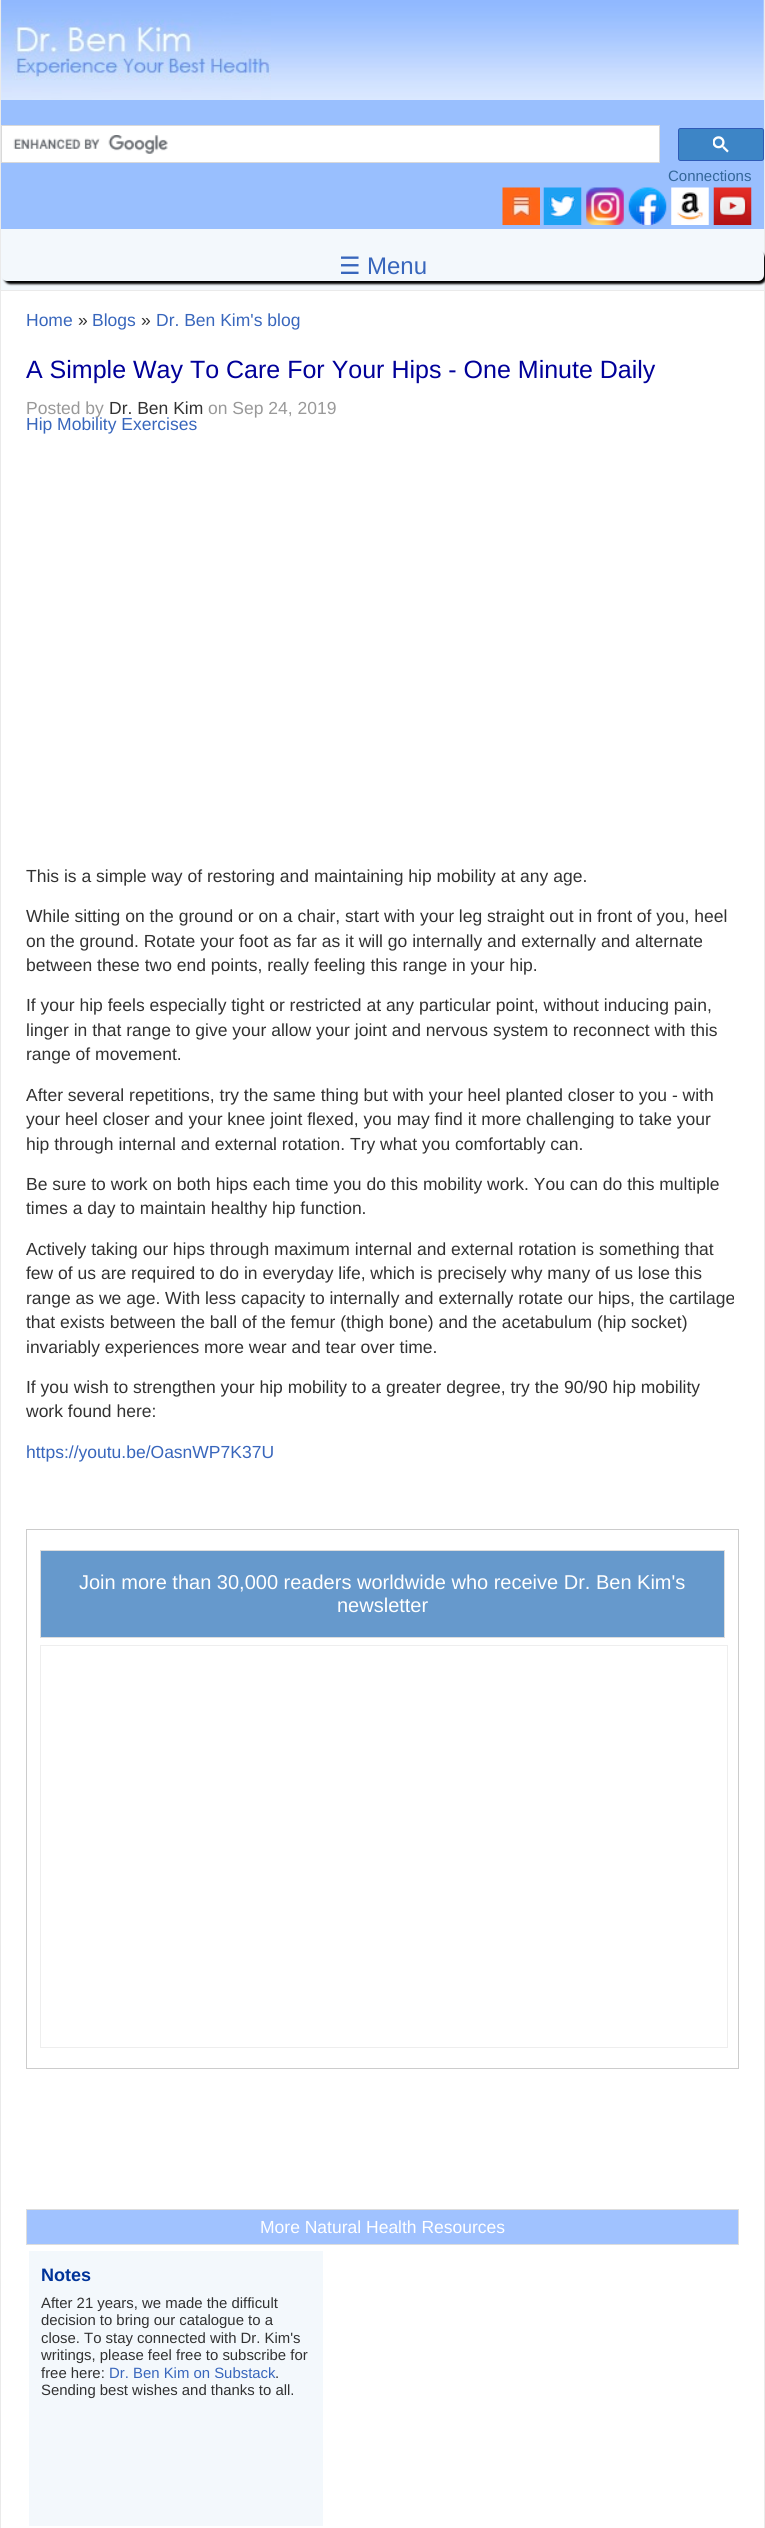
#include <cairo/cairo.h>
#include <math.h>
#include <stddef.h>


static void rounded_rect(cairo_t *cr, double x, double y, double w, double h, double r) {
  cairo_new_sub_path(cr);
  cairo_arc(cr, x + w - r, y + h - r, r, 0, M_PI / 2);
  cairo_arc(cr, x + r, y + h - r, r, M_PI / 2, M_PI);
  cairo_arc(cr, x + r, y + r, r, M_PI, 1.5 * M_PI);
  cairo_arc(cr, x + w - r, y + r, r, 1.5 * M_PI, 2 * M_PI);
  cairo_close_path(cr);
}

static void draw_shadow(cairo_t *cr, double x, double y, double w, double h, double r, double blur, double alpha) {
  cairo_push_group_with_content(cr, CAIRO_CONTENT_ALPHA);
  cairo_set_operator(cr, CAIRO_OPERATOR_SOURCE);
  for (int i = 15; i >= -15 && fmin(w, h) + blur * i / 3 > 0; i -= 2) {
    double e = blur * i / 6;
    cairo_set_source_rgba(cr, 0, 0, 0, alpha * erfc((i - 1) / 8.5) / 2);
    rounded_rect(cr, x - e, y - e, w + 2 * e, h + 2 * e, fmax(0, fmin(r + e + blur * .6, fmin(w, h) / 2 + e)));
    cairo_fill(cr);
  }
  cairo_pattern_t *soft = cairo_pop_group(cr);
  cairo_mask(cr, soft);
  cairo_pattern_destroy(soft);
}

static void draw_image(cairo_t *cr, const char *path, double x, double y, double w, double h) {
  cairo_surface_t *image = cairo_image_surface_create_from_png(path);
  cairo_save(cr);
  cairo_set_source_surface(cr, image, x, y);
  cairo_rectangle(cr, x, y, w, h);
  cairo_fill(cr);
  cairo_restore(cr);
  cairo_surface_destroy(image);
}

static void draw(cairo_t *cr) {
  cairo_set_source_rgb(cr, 1, 1, 1);
  cairo_paint(cr);
  cairo_set_source_rgb(cr, 234 / 255.0, 234 / 255.0, 234 / 255.0);
  cairo_rectangle(cr, 764, 0, 1, 2528);
  cairo_fill(cr);
  cairo_rectangle(cr, 0, 0, 1, 2528);
  cairo_fill(cr);
  cairo_set_source_rgb(cr, 243 / 255.0, 248 / 255.0, 252 / 255.0);
  cairo_rectangle(cr, 1, 0, 763, 290);
  cairo_fill(cr);
  draw_image(cr, "images/1.png", 1, 0, 763, 100);
  draw_image(cr, "images/2.png", 1, 0, 270, 100);
  cairo_set_source_rgb(cr, 153 / 255.0, 191 / 255.0, 254 / 255.0);
  cairo_rectangle(cr, 1, 100, 763, 129);
  cairo_fill(cr);
  cairo_set_source_rgb(cr, 1, 1, 1);
  cairo_rectangle(cr, 1.5, 125.5, 658, 37);
  cairo_fill_preserve(cr);
  cairo_set_source_rgb(cr, 217 / 255.0, 217 / 255.0, 217 / 255.0);
  cairo_set_line_width(cr, 1);
  cairo_stroke(cr);
  draw_image(cr, "images/3.png", 13, 135, 155, 19);
  cairo_set_source_rgb(cr, 61 / 255.0, 133 / 255.0, 198 / 255.0);
  rounded_rect(cr, 678.5, 128.5, 85, 32, 2);
  cairo_fill_preserve(cr);
  cairo_set_source_rgb(cr, 47 / 255.0, 91 / 255.0, 183 / 255.0);
  cairo_stroke(cr);
  draw_image(cr, "images/4.png", 713, 136, 16, 17);
  draw_image(cr, "images/5.png", 502, 187, 38, 38);
  draw_image(cr, "images/6.png", 543, 187, 39, 38);
  draw_image(cr, "images/7.png", 586, 187, 38, 38);
  draw_image(cr, "images/8.png", 628, 187, 39, 38);
  draw_image(cr, "images/9.png", 671, 187, 38, 38);
  draw_image(cr, "images/10.png", 713, 187, 39, 38);
  cairo_set_source_rgb(cr, 234 / 255.0, 234 / 255.0, 234 / 255.0);
  cairo_rectangle(cr, 1, 290, 763, 1);
  cairo_fill(cr);
  cairo_set_source_rgb(cr, 0, 0, 0);
  draw_shadow(cr, 4, 253, 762, 31, 6, 1, 1);
  cairo_set_source_rgb(cr, 243 / 255.0, 248 / 255.0, 252 / 255.0);
  rounded_rect(cr, 1, 250, 763, 31, 6);
  cairo_fill(cr);
  cairo_rectangle(cr, 26.5, 1529.5, 712, 539);
  cairo_set_source_rgb(cr, 204 / 255.0, 204 / 255.0, 204 / 255.0);
  cairo_stroke(cr);
  cairo_set_source_rgb(cr, 102 / 255.0, 153 / 255.0, 204 / 255.0);
  cairo_rectangle(cr, 40.5, 1550.5, 684, 87);
  cairo_fill_preserve(cr);
  cairo_set_source_rgb(cr, 221 / 255.0, 221 / 255.0, 221 / 255.0);
  cairo_stroke(cr);
  cairo_rectangle(cr, 40.5, 1645.5, 687, 402);
  cairo_set_source_rgb(cr, 238 / 255.0, 238 / 255.0, 238 / 255.0);
  cairo_stroke(cr);
  cairo_set_source_rgb(cr, 160 / 255.0, 194 / 255.0, 1);
  cairo_rectangle(cr, 26.5, 2209.5, 712, 35);
  cairo_fill_preserve(cr);
  cairo_set_source_rgb(cr, 221 / 255.0, 221 / 255.0, 221 / 255.0);
  cairo_stroke(cr);
  cairo_set_source_rgb(cr, 243 / 255.0, 248 / 255.0, 252 / 255.0);
  cairo_rectangle(cr, 29, 2251, 294, 275);
  cairo_fill(cr);
  cairo_select_font_face(cr, "Liberation Sans", CAIRO_FONT_SLANT_NORMAL, CAIRO_FONT_WEIGHT_NORMAL);
  cairo_set_font_size(cr, 15);
  cairo_set_source_rgb(cr, 51 / 255.0, 102 / 255.0, 153 / 255.0);
  cairo_move_to(cr, 668, 181);
  cairo_show_text(cr, "Connections");
  cairo_select_font_face(cr, "DejaVu Sans", CAIRO_FONT_SLANT_NORMAL, CAIRO_FONT_WEIGHT_NORMAL);
  cairo_set_font_size(cr, 24);
  cairo_set_source_rgb(cr, 56 / 255.0, 102 / 255.0, 188 / 255.0);
  cairo_move_to(cr, 339, 274);
  cairo_show_text(cr, "☰");
  cairo_select_font_face(cr, "Liberation Sans", CAIRO_FONT_SLANT_NORMAL, CAIRO_FONT_WEIGHT_NORMAL);
  cairo_move_to(cr, 367, 274);
  cairo_show_text(cr, "Menu");
  cairo_set_font_size(cr, 17.5);
  cairo_move_to(cr, 26, 326);
  cairo_show_text(cr, "Home");
  cairo_set_source_rgb(cr, 50 / 255.0, 50 / 255.0, 50 / 255.0);
  cairo_move_to(cr, 78, 326);
  cairo_show_text(cr, "»");
  cairo_set_source_rgb(cr, 56 / 255.0, 102 / 255.0, 188 / 255.0);
  cairo_move_to(cr, 92, 326);
  cairo_show_text(cr, "Blogs");
  cairo_set_source_rgb(cr, 50 / 255.0, 50 / 255.0, 50 / 255.0);
  cairo_move_to(cr, 141, 326);
  cairo_show_text(cr, "»");
  cairo_set_source_rgb(cr, 56 / 255.0, 102 / 255.0, 188 / 255.0);
  cairo_move_to(cr, 156, 326);
  cairo_show_text(cr, "Dr. Ben Kim's blog");
  cairo_set_font_size(cr, 25);
  cairo_set_source_rgb(cr, 0, 0, 153 / 255.0);
  cairo_move_to(cr, 26, 378);
  cairo_show_text(cr, "A Simple Way To Care For Your Hips - One Minute Daily");
  cairo_set_font_size(cr, 17.5);
  cairo_set_source_rgb(cr, 153 / 255.0, 153 / 255.0, 153 / 255.0);
  cairo_move_to(cr, 26, 414);
  cairo_show_text(cr, "Posted by");
  cairo_set_source_rgb(cr, 50 / 255.0, 50 / 255.0, 50 / 255.0);
  cairo_move_to(cr, 109, 414);
  cairo_show_text(cr, "Dr. Ben Kim");
  cairo_set_source_rgb(cr, 153 / 255.0, 153 / 255.0, 153 / 255.0);
  cairo_move_to(cr, 208, 414);
  cairo_show_text(cr, "on Sep 24, 2019");
  cairo_set_source_rgb(cr, 56 / 255.0, 102 / 255.0, 188 / 255.0);
  cairo_move_to(cr, 26, 430);
  cairo_show_text(cr, "Hip Mobility Exercises");
  cairo_set_source_rgb(cr, 50 / 255.0, 50 / 255.0, 50 / 255.0);
  cairo_move_to(cr, 26, 882);
  cairo_show_text(cr, "This is a simple way of restoring and maintaining hip mobility at any age.");
  cairo_move_to(cr, 26, 922);
  cairo_show_text(cr, "While sitting on the ground or on a chair, start with your leg straight out in front of you, heel");
  cairo_move_to(cr, 26, 947);
  cairo_show_text(cr, "on the ground. Rotate your foot as far as it will go internally and externally and alternate");
  cairo_move_to(cr, 26, 971);
  cairo_show_text(cr, "between these two end points, really feeling this range in your hip.");
  cairo_move_to(cr, 26, 1011);
  cairo_show_text(cr, "If your hip feels especially tight or restricted at any particular point, without inducing pain,");
  cairo_move_to(cr, 26, 1036);
  cairo_show_text(cr, "linger in that range to give your allow your joint and nervous system to reconnect with this");
  cairo_move_to(cr, 26, 1060);
  cairo_show_text(cr, "range of movement.");
  cairo_move_to(cr, 26, 1101);
  cairo_show_text(cr, "After several repetitions, try the same thing but with your heel planted closer to you - with");
  cairo_move_to(cr, 26, 1125);
  cairo_show_text(cr, "your heel closer and your knee joint flexed, you may find it more challenging to take your");
  cairo_move_to(cr, 26, 1150);
  cairo_show_text(cr, "hip through internal and external rotation. Try what you comfortably can.");
  cairo_move_to(cr, 26, 1190);
  cairo_show_text(cr, "Be sure to work on both hips each time you do this mobility work. You can do this multiple");
  cairo_move_to(cr, 26, 1214);
  cairo_show_text(cr, "times a day to maintain healthy hip function.");
  cairo_move_to(cr, 26, 1255);
  cairo_show_text(cr, "Actively taking our hips through maximum internal and external rotation is something that");
  cairo_move_to(cr, 26, 1279);
  cairo_show_text(cr, "few of us are required to do in everyday life, which is precisely why many of us lose this");
  cairo_move_to(cr, 26, 1304);
  cairo_show_text(cr, "range as we age. With less capacity to internally and externally rotate our hips, the cartilage");
  cairo_move_to(cr, 26, 1328);
  cairo_show_text(cr, "that exists between the ball of the femur (thigh bone) and the acetabulum (hip socket)");
  cairo_move_to(cr, 26, 1353);
  cairo_show_text(cr, "invariably experiences more wear and tear over time.");
  cairo_move_to(cr, 26, 1393);
  cairo_show_text(cr, "If you wish to strengthen your hip mobility to a greater degree, try the 90/90 hip mobility");
  cairo_move_to(cr, 26, 1417);
  cairo_show_text(cr, "work found here:");
  cairo_set_source_rgb(cr, 56 / 255.0, 102 / 255.0, 188 / 255.0);
  cairo_move_to(cr, 26, 1458);
  cairo_show_text(cr, "https://youtu.be/OasnWP7K37U");
  cairo_set_font_size(cr, 20);
  cairo_set_source_rgb(cr, 1, 1, 1);
  cairo_move_to(cr, 79, 1589);
  cairo_show_text(cr, "Join more than 30,000 readers worldwide who receive Dr. Ben Kim's");
  cairo_move_to(cr, 337, 1612);
  cairo_show_text(cr, "newsletter");
  cairo_set_font_size(cr, 17.5);
  cairo_move_to(cr, 260, 2233);
  cairo_show_text(cr, "More Natural Health Resources");
  cairo_select_font_face(cr, "Liberation Sans", CAIRO_FONT_SLANT_NORMAL, CAIRO_FONT_WEIGHT_BOLD);
  cairo_set_font_size(cr, 18);
  cairo_set_source_rgb(cr, 0, 51 / 255.0, 153 / 255.0);
  cairo_move_to(cr, 41, 2281);
  cairo_show_text(cr, "Notes");
  cairo_select_font_face(cr, "Liberation Sans", CAIRO_FONT_SLANT_NORMAL, CAIRO_FONT_WEIGHT_NORMAL);
  cairo_set_font_size(cr, 14.9);
  cairo_set_source_rgb(cr, 50 / 255.0, 50 / 255.0, 50 / 255.0);
  cairo_move_to(cr, 41, 2308);
  cairo_show_text(cr, "After 21 years, we made the difficult");
  cairo_move_to(cr, 41, 2325);
  cairo_show_text(cr, "decision to bring our catalogue to a");
  cairo_move_to(cr, 41, 2343);
  cairo_show_text(cr, "close. To stay connected with Dr. Kim's");
  cairo_move_to(cr, 41, 2360);
  cairo_show_text(cr, "writings, please feel free to subscribe for");
  cairo_move_to(cr, 41, 2378);
  cairo_show_text(cr, "free here:");
  cairo_set_source_rgb(cr, 56 / 255.0, 102 / 255.0, 188 / 255.0);
  cairo_move_to(cr, 109, 2378);
  cairo_show_text(cr, "Dr. Ben Kim on Substack");
  cairo_set_source_rgb(cr, 50 / 255.0, 50 / 255.0, 50 / 255.0);
  cairo_move_to(cr, 275, 2378);
  cairo_show_text(cr, ".");
  cairo_move_to(cr, 41, 2395);
  cairo_show_text(cr, "Sending best wishes and thanks to all.");
}

int main(void) {
  cairo_surface_t *surface = cairo_image_surface_create(CAIRO_FORMAT_RGB24, 765, 2528);
  cairo_t *cr = cairo_create(surface);
  cairo_font_options_t *options = cairo_font_options_create();
  cairo_font_options_set_hint_metrics(options, CAIRO_HINT_METRICS_OFF);
  cairo_font_options_set_hint_style(options, CAIRO_HINT_STYLE_NONE);
  cairo_set_font_options(cr, options);
  cairo_set_miter_limit(cr, 4);
  draw(cr);
  cairo_surface_write_to_png(surface, "out.png");
  cairo_font_options_destroy(options);
  cairo_destroy(cr);
  cairo_surface_destroy(surface);
  return 0;
}
